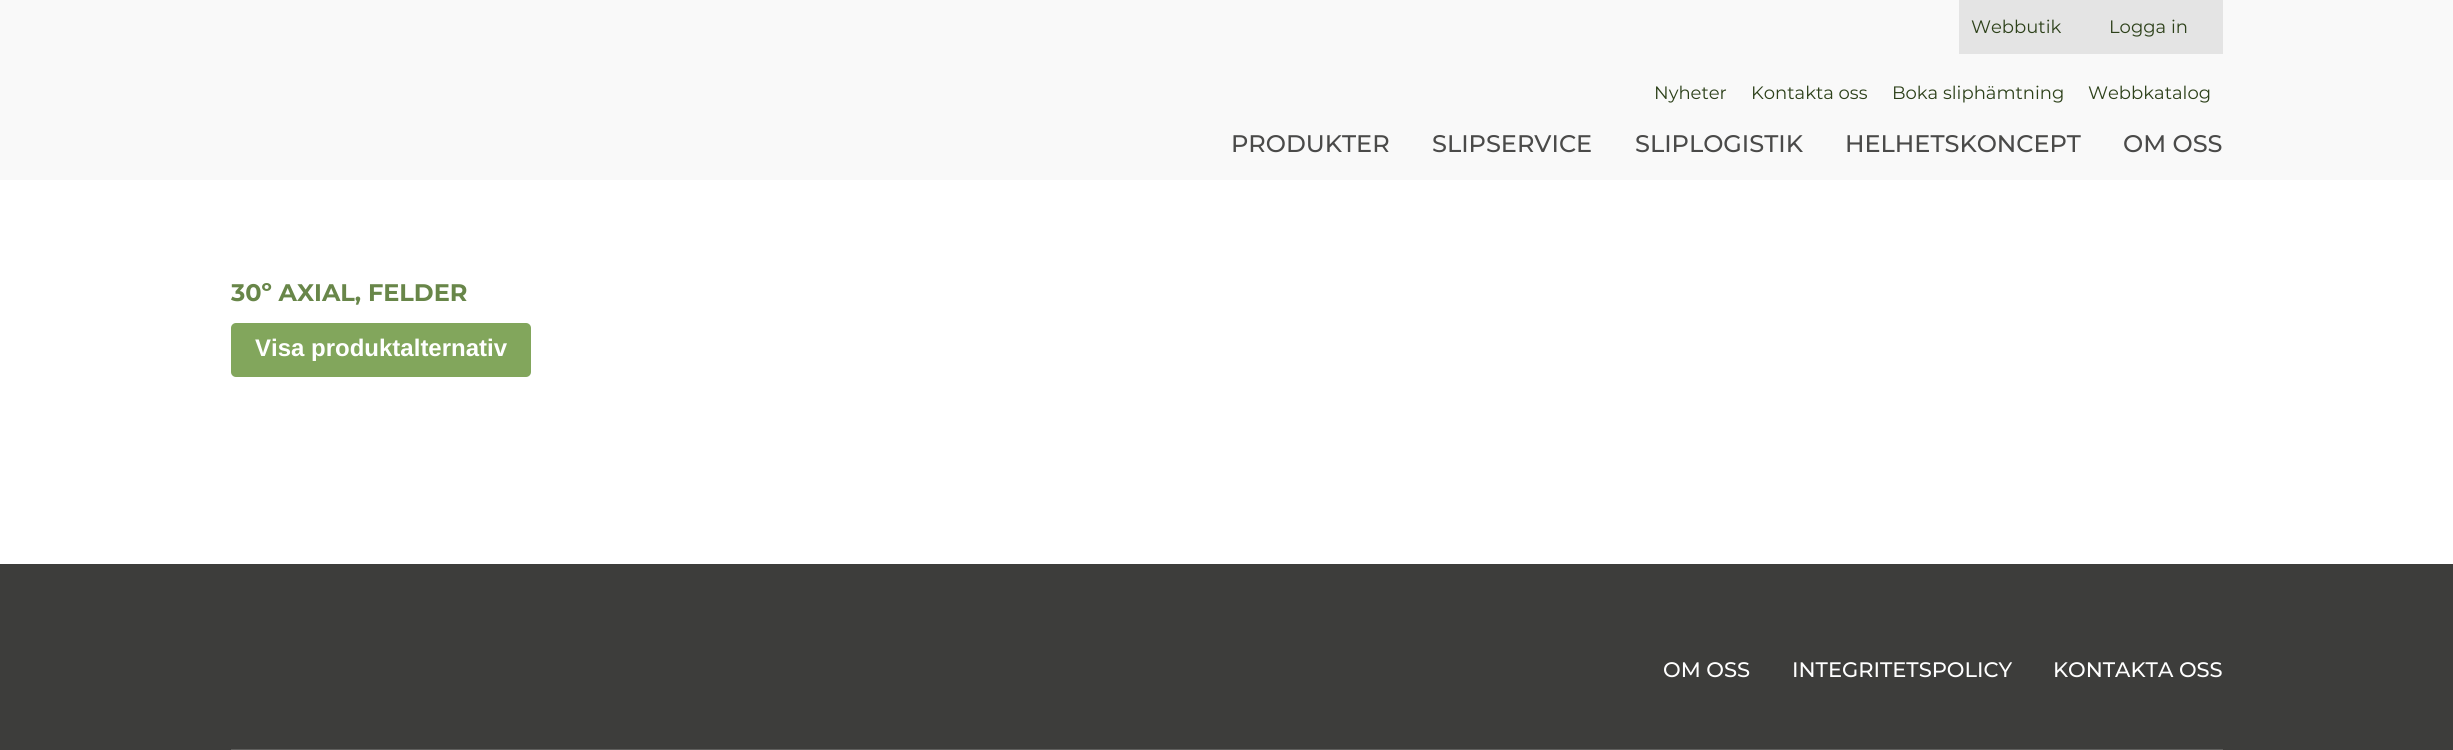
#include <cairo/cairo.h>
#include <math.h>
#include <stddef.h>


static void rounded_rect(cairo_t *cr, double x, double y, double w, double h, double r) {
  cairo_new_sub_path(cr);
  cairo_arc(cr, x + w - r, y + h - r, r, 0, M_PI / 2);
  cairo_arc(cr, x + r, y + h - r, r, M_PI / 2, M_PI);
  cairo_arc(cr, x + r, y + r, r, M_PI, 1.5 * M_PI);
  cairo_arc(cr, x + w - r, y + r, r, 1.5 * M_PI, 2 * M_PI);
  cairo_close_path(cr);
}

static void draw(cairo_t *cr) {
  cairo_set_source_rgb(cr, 1, 1, 1);
  cairo_paint(cr);
  cairo_set_source_rgb(cr, 249 / 255.0, 249 / 255.0, 249 / 255.0);
  cairo_rectangle(cr, 0, 0, 2453, 180);
  cairo_fill(cr);
  cairo_set_source_rgb(cr, 228 / 255.0, 228 / 255.0, 228 / 255.0);
  cairo_rectangle(cr, 1959, 0, 264, 54);
  cairo_fill(cr);
  cairo_set_source_rgb(cr, 130 / 255.0, 166 / 255.0, 92 / 255.0);
  rounded_rect(cr, 231, 323, 300, 54, 5);
  cairo_fill(cr);
  cairo_set_source_rgb(cr, 61 / 255.0, 61 / 255.0, 59 / 255.0);
  cairo_rectangle(cr, 0, 564, 2453, 186);
  cairo_fill(cr);
  cairo_set_source_rgb(cr, 95 / 255.0, 95 / 255.0, 93 / 255.0);
  cairo_rectangle(cr, 231, 749, 1992, 1);
  cairo_fill(cr);
  cairo_select_font_face(cr, "Montserrat", CAIRO_FONT_SLANT_NORMAL, CAIRO_FONT_WEIGHT_NORMAL);
  cairo_set_font_size(cr, 18);
  cairo_set_source_rgb(cr, 45 / 255.0, 65 / 255.0, 26 / 255.0);
  cairo_move_to(cr, 1971, 33);
  cairo_show_text(cr, "Webbutik");
  cairo_move_to(cr, 2109, 33);
  cairo_show_text(cr, "Logga in");
  cairo_move_to(cr, 1654, 99);
  cairo_show_text(cr, "Nyheter");
  cairo_move_to(cr, 1751, 99);
  cairo_show_text(cr, "Kontakta oss");
  cairo_move_to(cr, 1892, 99);
  cairo_show_text(cr, "Boka sliphämtning");
  cairo_move_to(cr, 2088, 99);
  cairo_show_text(cr, "Webbkatalog");
  cairo_select_font_face(cr, "Montserrat Medium", CAIRO_FONT_SLANT_NORMAL, CAIRO_FONT_WEIGHT_NORMAL);
  cairo_set_font_size(cr, 24);
  cairo_set_source_rgb(cr, 74 / 255.0, 74 / 255.0, 73 / 255.0);
  cairo_move_to(cr, 1231, 152);
  cairo_show_text(cr, "PRODUKTER");
  cairo_move_to(cr, 1432, 152);
  cairo_show_text(cr, "SLIPSERVICE");
  cairo_move_to(cr, 1635, 152);
  cairo_show_text(cr, "SLIPLOGISTIK");
  cairo_move_to(cr, 1845, 152);
  cairo_show_text(cr, "HELHETSKONCEPT");
  cairo_move_to(cr, 2123, 152);
  cairo_show_text(cr, "OM OSS");
  cairo_select_font_face(cr, "Montserrat", CAIRO_FONT_SLANT_NORMAL, CAIRO_FONT_WEIGHT_BOLD);
  cairo_set_source_rgb(cr, 104 / 255.0, 134 / 255.0, 73 / 255.0);
  cairo_move_to(cr, 231, 301);
  cairo_show_text(cr, "30º AXIAL, FELDER");
  cairo_select_font_face(cr, "Liberation Sans", CAIRO_FONT_SLANT_NORMAL, CAIRO_FONT_WEIGHT_BOLD);
  cairo_set_source_rgb(cr, 1, 1, 1);
  cairo_move_to(cr, 255, 356);
  cairo_show_text(cr, "Visa produktalternativ");
  cairo_select_font_face(cr, "Montserrat Medium", CAIRO_FONT_SLANT_NORMAL, CAIRO_FONT_WEIGHT_NORMAL);
  cairo_set_font_size(cr, 21);
  cairo_move_to(cr, 1663, 677);
  cairo_show_text(cr, "OM OSS");
  cairo_move_to(cr, 1792, 677);
  cairo_show_text(cr, "INTEGRITETSPOLICY");
  cairo_move_to(cr, 2053, 677);
  cairo_show_text(cr, "KONTAKTA OSS");
}

int main(void) {
  cairo_surface_t *surface = cairo_image_surface_create(CAIRO_FORMAT_RGB24, 2453, 750);
  cairo_t *cr = cairo_create(surface);
  cairo_font_options_t *options = cairo_font_options_create();
  cairo_font_options_set_hint_metrics(options, CAIRO_HINT_METRICS_OFF);
  cairo_font_options_set_hint_style(options, CAIRO_HINT_STYLE_NONE);
  cairo_set_font_options(cr, options);
  cairo_set_miter_limit(cr, 4);
  draw(cr);
  cairo_surface_write_to_png(surface, "out.png");
  cairo_font_options_destroy(options);
  cairo_destroy(cr);
  cairo_surface_destroy(surface);
  return 0;
}
